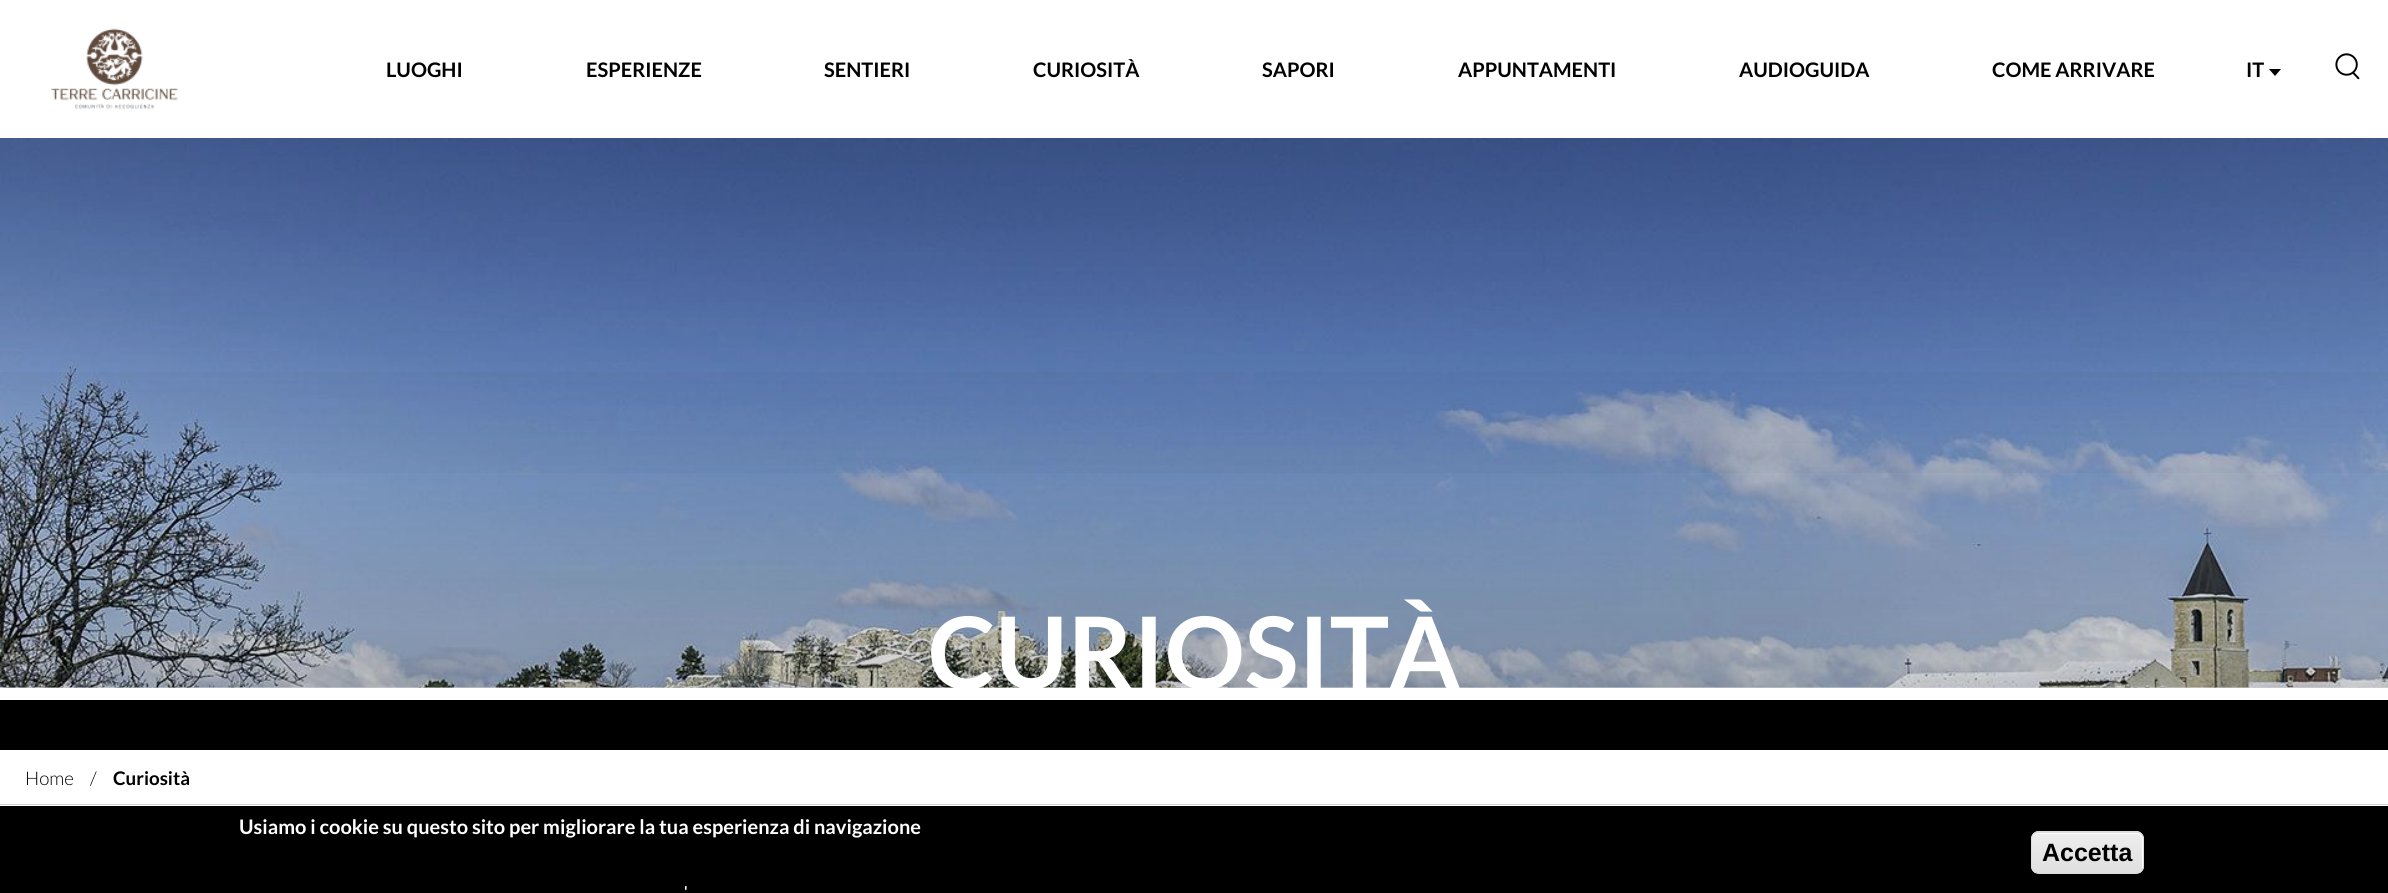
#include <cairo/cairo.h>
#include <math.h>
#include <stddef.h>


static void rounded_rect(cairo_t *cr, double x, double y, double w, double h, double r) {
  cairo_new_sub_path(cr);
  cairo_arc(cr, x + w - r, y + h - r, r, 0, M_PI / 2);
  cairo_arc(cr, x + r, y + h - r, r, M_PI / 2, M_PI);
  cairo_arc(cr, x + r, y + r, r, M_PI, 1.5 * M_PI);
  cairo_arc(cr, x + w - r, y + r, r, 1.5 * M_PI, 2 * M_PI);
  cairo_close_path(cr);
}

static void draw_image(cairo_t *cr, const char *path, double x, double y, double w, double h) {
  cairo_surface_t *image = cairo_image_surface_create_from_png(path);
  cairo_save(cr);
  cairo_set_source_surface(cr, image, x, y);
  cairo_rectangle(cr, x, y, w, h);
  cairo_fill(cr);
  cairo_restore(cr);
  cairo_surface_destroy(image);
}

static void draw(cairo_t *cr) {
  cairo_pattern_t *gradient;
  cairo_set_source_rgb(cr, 1, 1, 1);
  cairo_paint(cr);
  draw_image(cr, "images/1.png", 51, 28, 127, 81);
  cairo_set_source_rgb(cr, 0, 0, 0);
  cairo_new_path(cr);
  cairo_move_to(cr, 2269, 69);
  cairo_line_to(cr, 2275, 76);
  cairo_line_to(cr, 2281, 69);
  cairo_close_path(cr);
  cairo_fill(cr);
  draw_image(cr, "images/2.png", 2335, 53, 25, 27);
  draw_image(cr, "images/3.png", 0, 138, 2388, 550);
  gradient = cairo_pattern_create_linear(1194, 763, 1194, 325);
  cairo_pattern_add_color_stop_rgba(gradient, 0, 0, 0, 0, 0.2);
  cairo_pattern_add_color_stop_rgba(gradient, 1, 0, 0, 0, 0);
  cairo_set_source(cr, gradient);
  cairo_pattern_destroy(gradient);
  cairo_rectangle(cr, 0, 372, 2388, 316);
  cairo_fill(cr);
  gradient = cairo_pattern_create_linear(1194, 513, 1194, 138);
  cairo_pattern_add_color_stop_rgba(gradient, 0, 0, 0, 0, 0);
  cairo_pattern_add_color_stop_rgba(gradient, 1, 0, 0, 0, 0.2);
  cairo_set_source(cr, gradient);
  cairo_pattern_destroy(gradient);
  cairo_rectangle(cr, 0, 138, 2388, 335);
  cairo_fill(cr);
  cairo_set_source_rgb(cr, 0, 0, 0);
  cairo_rectangle(cr, 0, 700, 2388, 50);
  cairo_fill(cr);
  cairo_set_source_rgb(cr, 211 / 255.0, 211 / 255.0, 211 / 255.0);
  cairo_rectangle(cr, 0, 804, 2388, 1);
  cairo_fill(cr);
  cairo_set_source_rgb(cr, 0, 0, 0);
  cairo_rectangle(cr, 0, 806, 2388, 87);
  cairo_fill(cr);
  cairo_save(cr);
  rounded_rect(cr, 2031, 831, 113, 43, 8);
  cairo_clip(cr);
  gradient = cairo_pattern_create_linear(2088, 793, 2088, 833);
  cairo_pattern_add_color_stop_rgba(gradient, 0.05, 237 / 255.0, 237 / 255.0, 237 / 255.0, 1);
  cairo_pattern_add_color_stop_rgba(gradient, 1, 223 / 255.0, 223 / 255.0, 223 / 255.0, 1);
  cairo_set_source(cr, gradient);
  cairo_pattern_destroy(gradient);
  cairo_rectangle(cr, 2031, 831, 113, 2);
  cairo_fill(cr);
  gradient = cairo_pattern_create_linear(2088, 833, 2088, 873);
  cairo_pattern_add_color_stop_rgba(gradient, 0.05, 237 / 255.0, 237 / 255.0, 237 / 255.0, 1);
  cairo_pattern_add_color_stop_rgba(gradient, 1, 223 / 255.0, 223 / 255.0, 223 / 255.0, 1);
  cairo_set_source(cr, gradient);
  cairo_pattern_destroy(gradient);
  cairo_rectangle(cr, 2031, 833, 113, 40);
  cairo_fill(cr);
  cairo_restore(cr);
  cairo_set_source_rgb(cr, 1, 1, 1);
  cairo_new_path(cr);
  cairo_move_to(cr, 2039, 834);
  cairo_line_to(cr, 2136, 834);
  cairo_curve_to(cr, 2140, 834, 2142, 837, 2142, 840);
  cairo_line_to(cr, 2142, 868);
  cairo_curve_to(cr, 2142, 869, 2142, 870, 2141, 871);
  cairo_curve_to(cr, 2142, 870, 2143, 869, 2143, 867);
  cairo_line_to(cr, 2143, 839);
  cairo_curve_to(cr, 2143, 836, 2140, 833, 2137, 833);
  cairo_line_to(cr, 2039, 833);
  cairo_curve_to(cr, 2037, 833, 2035, 834, 2034, 836);
  cairo_curve_to(cr, 2035, 835, 2037, 834, 2039, 834);
  cairo_close_path(cr);
  cairo_fill(cr);
  rounded_rect(cr, 2031.5, 831.5, 112, 42, 7.5);
  cairo_set_source_rgb(cr, 220 / 255.0, 220 / 255.0, 220 / 255.0);
  cairo_set_line_width(cr, 1);
  cairo_stroke(cr);
  cairo_select_font_face(cr, "Lato", CAIRO_FONT_SLANT_NORMAL, CAIRO_FONT_WEIGHT_BOLD);
  cairo_set_font_size(cr, 20);
  cairo_set_source_rgb(cr, 0, 0, 0);
  cairo_move_to(cr, 386, 77);
  cairo_show_text(cr, "LUOGHI");
  cairo_move_to(cr, 586, 77);
  cairo_show_text(cr, "ESPERIENZE");
  cairo_move_to(cr, 824, 77);
  cairo_show_text(cr, "SENTIERI");
  cairo_move_to(cr, 1033, 77);
  cairo_show_text(cr, "CURIOSITÀ");
  cairo_move_to(cr, 1262, 77);
  cairo_show_text(cr, "SAPORI");
  cairo_move_to(cr, 1458, 77);
  cairo_show_text(cr, "APPUNTAMENTI");
  cairo_move_to(cr, 1739, 77);
  cairo_show_text(cr, "AUDIOGUIDA");
  cairo_move_to(cr, 1992, 77);
  cairo_show_text(cr, "COME ARRIVARE");
  cairo_move_to(cr, 2246, 77);
  cairo_show_text(cr, "IT");
  cairo_save(cr);
  cairo_rectangle(cr, 0, 138, 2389, 550);
  cairo_clip(cr);
  cairo_set_font_size(cr, 100);
  cairo_set_source_rgb(cr, 1, 1, 1);
  cairo_move_to(cr, 928, 689);
  cairo_show_text(cr, "CURIOSITÀ");
  cairo_restore(cr);
  cairo_select_font_face(cr, "Lato Light", CAIRO_FONT_SLANT_NORMAL, CAIRO_FONT_WEIGHT_NORMAL);
  cairo_set_font_size(cr, 18.75);
  cairo_move_to(cr, 25, 785);
  cairo_show_text(cr, "Home");
  cairo_move_to(cr, 90, 785);
  cairo_show_text(cr, "/");
  cairo_select_font_face(cr, "Lato", CAIRO_FONT_SLANT_NORMAL, CAIRO_FONT_WEIGHT_BOLD);
  cairo_move_to(cr, 113, 785);
  cairo_show_text(cr, "Curiosità");
  cairo_set_font_size(cr, 20);
  cairo_set_source_rgb(cr, 1, 1, 1);
  cairo_move_to(cr, 239, 834);
  cairo_show_text(cr, "Usiamo i cookie su questo sito per migliorare la tua esperienza di navigazione");
  cairo_set_font_size(cr, 15);
  cairo_move_to(cr, 684, 897);
  cairo_show_text(cr, "'");
  cairo_select_font_face(cr, "Liberation Sans", CAIRO_FONT_SLANT_NORMAL, CAIRO_FONT_WEIGHT_BOLD);
  cairo_set_font_size(cr, 25);
  cairo_set_source_rgb(cr, 0, 0, 0);
  cairo_move_to(cr, 2042, 861);
  cairo_show_text(cr, "Accetta");
}

int main(void) {
  cairo_surface_t *surface = cairo_image_surface_create(CAIRO_FORMAT_RGB24, 2388, 893);
  cairo_t *cr = cairo_create(surface);
  cairo_font_options_t *options = cairo_font_options_create();
  cairo_font_options_set_hint_metrics(options, CAIRO_HINT_METRICS_OFF);
  cairo_font_options_set_hint_style(options, CAIRO_HINT_STYLE_NONE);
  cairo_set_font_options(cr, options);
  cairo_set_miter_limit(cr, 4);
  draw(cr);
  cairo_surface_write_to_png(surface, "out.png");
  cairo_font_options_destroy(options);
  cairo_destroy(cr);
  cairo_surface_destroy(surface);
  return 0;
}
